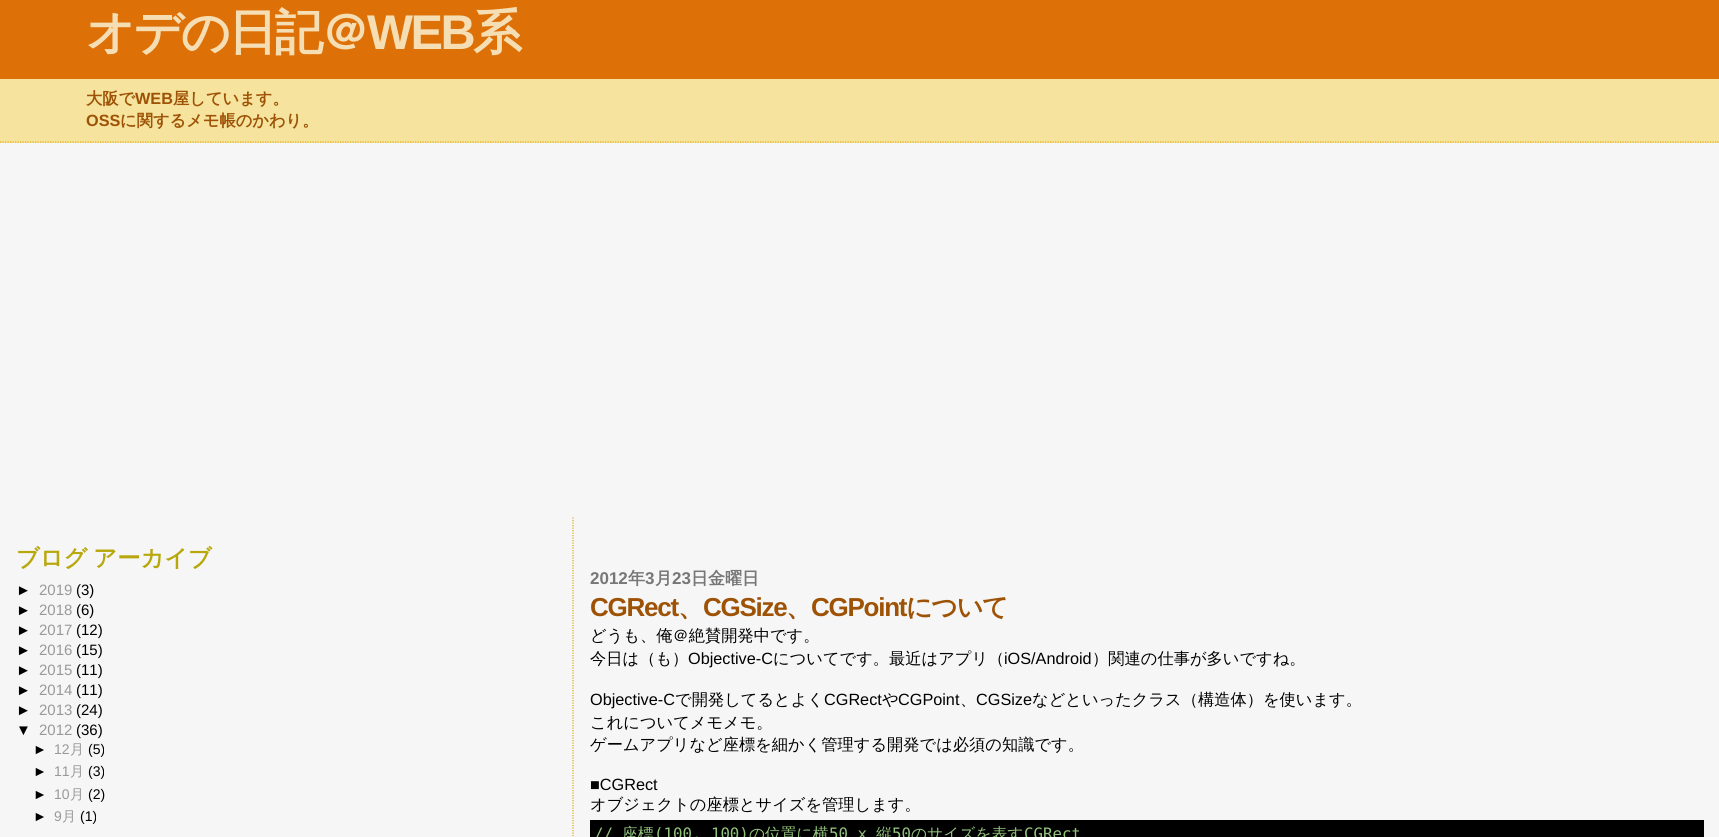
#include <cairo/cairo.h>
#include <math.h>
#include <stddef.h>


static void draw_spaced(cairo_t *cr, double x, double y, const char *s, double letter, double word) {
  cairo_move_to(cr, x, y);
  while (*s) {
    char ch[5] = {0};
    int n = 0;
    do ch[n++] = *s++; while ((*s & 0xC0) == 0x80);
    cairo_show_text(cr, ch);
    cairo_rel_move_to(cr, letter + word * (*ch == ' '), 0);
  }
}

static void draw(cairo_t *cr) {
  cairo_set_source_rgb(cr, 246 / 255.0, 246 / 255.0, 246 / 255.0);
  cairo_paint(cr);
  cairo_set_source_rgb(cr, 245 / 255.0, 227 / 255.0, 158 / 255.0);
  cairo_rectangle(cr, 0, 79, 1719, 64);
  cairo_fill(cr);
  cairo_new_path(cr);
  cairo_move_to(cr, 0, 142);
  cairo_line_to(cr, 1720, 142);
  cairo_set_source_rgb(cr, 224 / 255.0, 173 / 255.0, 18 / 255.0);
  cairo_set_line_width(cr, 1.2);
  cairo_set_dash(cr, (double[]){1.25, 1.25}, 2, 0);
  cairo_stroke(cr);
  cairo_set_source_rgb(cr, 222 / 255.0, 112 / 255.0, 8 / 255.0);
  cairo_rectangle(cr, 0, 0, 1719, 79);
  cairo_fill(cr);
  cairo_new_path(cr);
  cairo_move_to(cr, 573, 517.5);
  cairo_line_to(cr, 573, 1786);
  cairo_set_source_rgb(cr, 224 / 255.0, 173 / 255.0, 18 / 255.0);
  cairo_stroke(cr);
  cairo_set_source_rgb(cr, 0, 0, 0);
  cairo_rectangle(cr, 590, 820, 1114, 17);
  cairo_fill(cr);
  cairo_select_font_face(cr, "WenQuanYi Zen Hei", CAIRO_FONT_SLANT_NORMAL, CAIRO_FONT_WEIGHT_BOLD);
  cairo_set_font_size(cr, 48.75);
  cairo_set_source_rgb(cr, 245 / 255.0, 222 / 255.0, 179 / 255.0);
  draw_spaced(cr, 86, 49, "オデの日記＠", -2.5, 0);
  cairo_select_font_face(cr, "Liberation Sans", CAIRO_FONT_SLANT_NORMAL, CAIRO_FONT_WEIGHT_BOLD);
  draw_spaced(cr, 367, 49, "WEB", -2.5, 0);
  cairo_select_font_face(cr, "WenQuanYi Zen Hei", CAIRO_FONT_SLANT_NORMAL, CAIRO_FONT_WEIGHT_BOLD);
  draw_spaced(cr, 473, 49, "系", -2.5, 0);
  cairo_set_font_size(cr, 16.25);
  cairo_set_source_rgb(cr, 158 / 255.0, 82 / 255.0, 5 / 255.0);
  cairo_move_to(cr, 86, 104);
  cairo_show_text(cr, "大阪で");
  cairo_select_font_face(cr, "Liberation Sans", CAIRO_FONT_SLANT_NORMAL, CAIRO_FONT_WEIGHT_BOLD);
  cairo_move_to(cr, 135, 104);
  cairo_show_text(cr, "WEB");
  cairo_select_font_face(cr, "WenQuanYi Zen Hei", CAIRO_FONT_SLANT_NORMAL, CAIRO_FONT_WEIGHT_BOLD);
  cairo_move_to(cr, 173, 104);
  cairo_show_text(cr, "屋しています。");
  cairo_select_font_face(cr, "Liberation Sans", CAIRO_FONT_SLANT_NORMAL, CAIRO_FONT_WEIGHT_BOLD);
  cairo_move_to(cr, 86, 126);
  cairo_show_text(cr, "OSS");
  cairo_select_font_face(cr, "WenQuanYi Zen Hei", CAIRO_FONT_SLANT_NORMAL, CAIRO_FONT_WEIGHT_BOLD);
  cairo_move_to(cr, 120, 126);
  cairo_show_text(cr, "に関するメモ帳のかわり。");
  cairo_set_font_size(cr, 23.25);
  cairo_set_source_rgb(cr, 184 / 255.0, 168 / 255.0, 13 / 255.0);
  draw_spaced(cr, 16, 566, "ブログ アーカイブ", 0, -1);
  cairo_select_font_face(cr, "Liberation Sans", CAIRO_FONT_SLANT_NORMAL, CAIRO_FONT_WEIGHT_NORMAL);
  cairo_set_font_size(cr, 15);
  cairo_set_source_rgb(cr, 0, 0, 0);
  cairo_move_to(cr, 16, 595);
  cairo_show_text(cr, "►");
  cairo_set_source_rgb(cr, 153 / 255.0, 153 / 255.0, 153 / 255.0);
  cairo_move_to(cr, 39, 595);
  cairo_show_text(cr, "2019");
  cairo_set_source_rgb(cr, 0, 0, 0);
  cairo_move_to(cr, 76, 595);
  cairo_show_text(cr, "(3)");
  cairo_move_to(cr, 16, 615);
  cairo_show_text(cr, "►");
  cairo_set_source_rgb(cr, 153 / 255.0, 153 / 255.0, 153 / 255.0);
  cairo_move_to(cr, 39, 615);
  cairo_show_text(cr, "2018");
  cairo_set_source_rgb(cr, 0, 0, 0);
  cairo_move_to(cr, 76, 615);
  cairo_show_text(cr, "(6)");
  cairo_move_to(cr, 16, 635);
  cairo_show_text(cr, "►");
  cairo_set_source_rgb(cr, 153 / 255.0, 153 / 255.0, 153 / 255.0);
  cairo_move_to(cr, 39, 635);
  cairo_show_text(cr, "2017");
  cairo_set_source_rgb(cr, 0, 0, 0);
  cairo_move_to(cr, 76, 635);
  cairo_show_text(cr, "(12)");
  cairo_move_to(cr, 16, 655);
  cairo_show_text(cr, "►");
  cairo_set_source_rgb(cr, 153 / 255.0, 153 / 255.0, 153 / 255.0);
  cairo_move_to(cr, 39, 655);
  cairo_show_text(cr, "2016");
  cairo_set_source_rgb(cr, 0, 0, 0);
  cairo_move_to(cr, 76, 655);
  cairo_show_text(cr, "(15)");
  cairo_move_to(cr, 16, 675);
  cairo_show_text(cr, "►");
  cairo_set_source_rgb(cr, 153 / 255.0, 153 / 255.0, 153 / 255.0);
  cairo_move_to(cr, 39, 675);
  cairo_show_text(cr, "2015");
  cairo_set_source_rgb(cr, 0, 0, 0);
  cairo_move_to(cr, 76, 675);
  cairo_show_text(cr, "(11)");
  cairo_move_to(cr, 16, 695);
  cairo_show_text(cr, "►");
  cairo_set_source_rgb(cr, 153 / 255.0, 153 / 255.0, 153 / 255.0);
  cairo_move_to(cr, 39, 695);
  cairo_show_text(cr, "2014");
  cairo_set_source_rgb(cr, 0, 0, 0);
  cairo_move_to(cr, 76, 695);
  cairo_show_text(cr, "(11)");
  cairo_move_to(cr, 16, 715);
  cairo_show_text(cr, "►");
  cairo_set_source_rgb(cr, 153 / 255.0, 153 / 255.0, 153 / 255.0);
  cairo_move_to(cr, 39, 715);
  cairo_show_text(cr, "2013");
  cairo_set_source_rgb(cr, 0, 0, 0);
  cairo_move_to(cr, 76, 715);
  cairo_show_text(cr, "(24)");
  cairo_move_to(cr, 16, 735);
  cairo_show_text(cr, "▼");
  cairo_set_source_rgb(cr, 153 / 255.0, 153 / 255.0, 153 / 255.0);
  cairo_move_to(cr, 39, 735);
  cairo_show_text(cr, "2012");
  cairo_set_source_rgb(cr, 0, 0, 0);
  cairo_move_to(cr, 76, 735);
  cairo_show_text(cr, "(36)");
  cairo_set_font_size(cr, 14);
  cairo_move_to(cr, 33, 754);
  cairo_show_text(cr, "►");
  cairo_set_source_rgb(cr, 153 / 255.0, 153 / 255.0, 153 / 255.0);
  cairo_move_to(cr, 54, 754);
  cairo_show_text(cr, "12");
  cairo_select_font_face(cr, "WenQuanYi Zen Hei Medium", CAIRO_FONT_SLANT_NORMAL, CAIRO_FONT_WEIGHT_NORMAL);
  cairo_move_to(cr, 70, 754);
  cairo_show_text(cr, "月");
  cairo_select_font_face(cr, "Liberation Sans", CAIRO_FONT_SLANT_NORMAL, CAIRO_FONT_WEIGHT_NORMAL);
  cairo_set_source_rgb(cr, 0, 0, 0);
  cairo_move_to(cr, 88, 754);
  cairo_show_text(cr, "(5)");
  cairo_move_to(cr, 33, 776);
  cairo_show_text(cr, "►");
  cairo_set_source_rgb(cr, 153 / 255.0, 153 / 255.0, 153 / 255.0);
  cairo_move_to(cr, 54, 776);
  cairo_show_text(cr, "11");
  cairo_select_font_face(cr, "WenQuanYi Zen Hei Medium", CAIRO_FONT_SLANT_NORMAL, CAIRO_FONT_WEIGHT_NORMAL);
  cairo_move_to(cr, 70, 776);
  cairo_show_text(cr, "月");
  cairo_select_font_face(cr, "Liberation Sans", CAIRO_FONT_SLANT_NORMAL, CAIRO_FONT_WEIGHT_NORMAL);
  cairo_set_source_rgb(cr, 0, 0, 0);
  cairo_move_to(cr, 88, 776);
  cairo_show_text(cr, "(3)");
  cairo_move_to(cr, 33, 799);
  cairo_show_text(cr, "►");
  cairo_set_source_rgb(cr, 153 / 255.0, 153 / 255.0, 153 / 255.0);
  cairo_move_to(cr, 54, 799);
  cairo_show_text(cr, "10");
  cairo_select_font_face(cr, "WenQuanYi Zen Hei Medium", CAIRO_FONT_SLANT_NORMAL, CAIRO_FONT_WEIGHT_NORMAL);
  cairo_move_to(cr, 70, 799);
  cairo_show_text(cr, "月");
  cairo_select_font_face(cr, "Liberation Sans", CAIRO_FONT_SLANT_NORMAL, CAIRO_FONT_WEIGHT_NORMAL);
  cairo_set_source_rgb(cr, 0, 0, 0);
  cairo_move_to(cr, 88, 799);
  cairo_show_text(cr, "(2)");
  cairo_move_to(cr, 33, 821);
  cairo_show_text(cr, "►");
  cairo_set_source_rgb(cr, 153 / 255.0, 153 / 255.0, 153 / 255.0);
  cairo_move_to(cr, 54, 821);
  cairo_show_text(cr, "9");
  cairo_select_font_face(cr, "WenQuanYi Zen Hei Medium", CAIRO_FONT_SLANT_NORMAL, CAIRO_FONT_WEIGHT_NORMAL);
  cairo_move_to(cr, 62, 821);
  cairo_show_text(cr, "月");
  cairo_select_font_face(cr, "Liberation Sans", CAIRO_FONT_SLANT_NORMAL, CAIRO_FONT_WEIGHT_NORMAL);
  cairo_set_source_rgb(cr, 0, 0, 0);
  cairo_move_to(cr, 80, 821);
  cairo_show_text(cr, "(1)");
  cairo_select_font_face(cr, "Liberation Sans", CAIRO_FONT_SLANT_NORMAL, CAIRO_FONT_WEIGHT_BOLD);
  cairo_set_font_size(cr, 17);
  cairo_set_source_rgb(cr, 119 / 255.0, 119 / 255.0, 119 / 255.0);
  cairo_move_to(cr, 590, 584);
  cairo_show_text(cr, "2012");
  cairo_select_font_face(cr, "WenQuanYi Zen Hei", CAIRO_FONT_SLANT_NORMAL, CAIRO_FONT_WEIGHT_BOLD);
  cairo_move_to(cr, 628, 584);
  cairo_show_text(cr, "年");
  cairo_select_font_face(cr, "Liberation Sans", CAIRO_FONT_SLANT_NORMAL, CAIRO_FONT_WEIGHT_BOLD);
  cairo_move_to(cr, 645, 584);
  cairo_show_text(cr, "3");
  cairo_select_font_face(cr, "WenQuanYi Zen Hei", CAIRO_FONT_SLANT_NORMAL, CAIRO_FONT_WEIGHT_BOLD);
  cairo_move_to(cr, 655, 584);
  cairo_show_text(cr, "月");
  cairo_select_font_face(cr, "Liberation Sans", CAIRO_FONT_SLANT_NORMAL, CAIRO_FONT_WEIGHT_BOLD);
  cairo_move_to(cr, 672, 584);
  cairo_show_text(cr, "23");
  cairo_select_font_face(cr, "WenQuanYi Zen Hei", CAIRO_FONT_SLANT_NORMAL, CAIRO_FONT_WEIGHT_BOLD);
  cairo_move_to(cr, 691, 584);
  cairo_show_text(cr, "日金曜日");
  cairo_select_font_face(cr, "Liberation Sans", CAIRO_FONT_SLANT_NORMAL, CAIRO_FONT_WEIGHT_BOLD);
  cairo_set_font_size(cr, 26);
  cairo_set_source_rgb(cr, 158 / 255.0, 82 / 255.0, 5 / 255.0);
  draw_spaced(cr, 590, 616, "CGRect", -1.25, 0);
  cairo_select_font_face(cr, "WenQuanYi Zen Hei", CAIRO_FONT_SLANT_NORMAL, CAIRO_FONT_WEIGHT_BOLD);
  draw_spaced(cr, 678, 616, "、", -1.25, 0);
  cairo_select_font_face(cr, "Liberation Sans", CAIRO_FONT_SLANT_NORMAL, CAIRO_FONT_WEIGHT_BOLD);
  draw_spaced(cr, 703, 616, "CGSize", -1.25, 0);
  cairo_select_font_face(cr, "WenQuanYi Zen Hei", CAIRO_FONT_SLANT_NORMAL, CAIRO_FONT_WEIGHT_BOLD);
  draw_spaced(cr, 786, 616, "、", -1.25, 0);
  cairo_select_font_face(cr, "Liberation Sans", CAIRO_FONT_SLANT_NORMAL, CAIRO_FONT_WEIGHT_BOLD);
  draw_spaced(cr, 811, 616, "CGPoint", -1.25, 0);
  cairo_select_font_face(cr, "WenQuanYi Zen Hei", CAIRO_FONT_SLANT_NORMAL, CAIRO_FONT_WEIGHT_BOLD);
  draw_spaced(cr, 906, 616, "について", -1.25, 0);
  cairo_select_font_face(cr, "WenQuanYi Zen Hei Medium", CAIRO_FONT_SLANT_NORMAL, CAIRO_FONT_WEIGHT_NORMAL);
  cairo_set_font_size(cr, 16.25);
  cairo_set_source_rgb(cr, 0, 0, 0);
  cairo_move_to(cr, 590, 641);
  cairo_show_text(cr, "どうも、俺＠絶賛開発中です。");
  cairo_move_to(cr, 590, 664);
  cairo_show_text(cr, "今日は（も）");
  cairo_select_font_face(cr, "Liberation Sans", CAIRO_FONT_SLANT_NORMAL, CAIRO_FONT_WEIGHT_NORMAL);
  cairo_move_to(cr, 688, 664);
  cairo_show_text(cr, "Objective-C");
  cairo_select_font_face(cr, "WenQuanYi Zen Hei Medium", CAIRO_FONT_SLANT_NORMAL, CAIRO_FONT_WEIGHT_NORMAL);
  cairo_move_to(cr, 773, 664);
  cairo_show_text(cr, "についてです。最近はアプリ（");
  cairo_select_font_face(cr, "Liberation Sans", CAIRO_FONT_SLANT_NORMAL, CAIRO_FONT_WEIGHT_NORMAL);
  cairo_move_to(cr, 1004, 664);
  cairo_show_text(cr, "iOS/Android");
  cairo_select_font_face(cr, "WenQuanYi Zen Hei Medium", CAIRO_FONT_SLANT_NORMAL, CAIRO_FONT_WEIGHT_NORMAL);
  cairo_move_to(cr, 1092, 664);
  cairo_show_text(cr, "）関連の仕事が多いですね。");
  cairo_select_font_face(cr, "Liberation Sans", CAIRO_FONT_SLANT_NORMAL, CAIRO_FONT_WEIGHT_NORMAL);
  cairo_move_to(cr, 590, 705);
  cairo_show_text(cr, "Objective-C");
  cairo_select_font_face(cr, "WenQuanYi Zen Hei Medium", CAIRO_FONT_SLANT_NORMAL, CAIRO_FONT_WEIGHT_NORMAL);
  cairo_move_to(cr, 675, 705);
  cairo_show_text(cr, "で開発してるとよく");
  cairo_select_font_face(cr, "Liberation Sans", CAIRO_FONT_SLANT_NORMAL, CAIRO_FONT_WEIGHT_NORMAL);
  cairo_move_to(cr, 824, 705);
  cairo_show_text(cr, "CGRect");
  cairo_select_font_face(cr, "WenQuanYi Zen Hei Medium", CAIRO_FONT_SLANT_NORMAL, CAIRO_FONT_WEIGHT_NORMAL);
  cairo_move_to(cr, 882, 705);
  cairo_show_text(cr, "や");
  cairo_select_font_face(cr, "Liberation Sans", CAIRO_FONT_SLANT_NORMAL, CAIRO_FONT_WEIGHT_NORMAL);
  cairo_move_to(cr, 898, 705);
  cairo_show_text(cr, "CGPoint");
  cairo_select_font_face(cr, "WenQuanYi Zen Hei Medium", CAIRO_FONT_SLANT_NORMAL, CAIRO_FONT_WEIGHT_NORMAL);
  cairo_move_to(cr, 960, 705);
  cairo_show_text(cr, "、");
  cairo_select_font_face(cr, "Liberation Sans", CAIRO_FONT_SLANT_NORMAL, CAIRO_FONT_WEIGHT_NORMAL);
  cairo_move_to(cr, 976, 705);
  cairo_show_text(cr, "CGSize");
  cairo_select_font_face(cr, "WenQuanYi Zen Hei Medium", CAIRO_FONT_SLANT_NORMAL, CAIRO_FONT_WEIGHT_NORMAL);
  cairo_move_to(cr, 1032, 705);
  cairo_show_text(cr, "などといったクラス（構造体）を使います。");
  cairo_move_to(cr, 590, 728);
  cairo_show_text(cr, "これについてメモメモ。");
  cairo_move_to(cr, 590, 750);
  cairo_show_text(cr, "ゲームアプリなど座標を細かく管理する開発では必須の知識です。");
  cairo_select_font_face(cr, "Liberation Sans", CAIRO_FONT_SLANT_NORMAL, CAIRO_FONT_WEIGHT_NORMAL);
  cairo_move_to(cr, 590, 790);
  cairo_show_text(cr, "■CGRect");
  cairo_select_font_face(cr, "WenQuanYi Zen Hei Medium", CAIRO_FONT_SLANT_NORMAL, CAIRO_FONT_WEIGHT_NORMAL);
  cairo_move_to(cr, 590, 810);
  cairo_show_text(cr, "オブジェクトの座標とサイズを管理します。");
  cairo_select_font_face(cr, "DejaVu Sans Mono", CAIRO_FONT_SLANT_NORMAL, CAIRO_FONT_WEIGHT_NORMAL);
  cairo_set_font_size(cr, 15.75);
  cairo_set_source_rgb(cr, 147 / 255.0, 196 / 255.0, 125 / 255.0);
  cairo_move_to(cr, 594, 839);
  cairo_show_text(cr, "//");
  cairo_select_font_face(cr, "WenQuanYi Zen Hei Medium", CAIRO_FONT_SLANT_NORMAL, CAIRO_FONT_WEIGHT_NORMAL);
  cairo_move_to(cr, 622, 839);
  cairo_show_text(cr, "座標");
  cairo_select_font_face(cr, "DejaVu Sans Mono", CAIRO_FONT_SLANT_NORMAL, CAIRO_FONT_WEIGHT_NORMAL);
  cairo_move_to(cr, 654, 839);
  cairo_show_text(cr, "(100, 100)");
  cairo_select_font_face(cr, "WenQuanYi Zen Hei Medium", CAIRO_FONT_SLANT_NORMAL, CAIRO_FONT_WEIGHT_NORMAL);
  cairo_move_to(cr, 749, 839);
  cairo_show_text(cr, "の位置に横");
  cairo_select_font_face(cr, "DejaVu Sans Mono", CAIRO_FONT_SLANT_NORMAL, CAIRO_FONT_WEIGHT_NORMAL);
  cairo_move_to(cr, 829, 839);
  cairo_show_text(cr, "50 x");
  cairo_select_font_face(cr, "WenQuanYi Zen Hei Medium", CAIRO_FONT_SLANT_NORMAL, CAIRO_FONT_WEIGHT_NORMAL);
  cairo_move_to(cr, 876, 839);
  cairo_show_text(cr, "縦");
  cairo_select_font_face(cr, "DejaVu Sans Mono", CAIRO_FONT_SLANT_NORMAL, CAIRO_FONT_WEIGHT_NORMAL);
  cairo_move_to(cr, 892, 839);
  cairo_show_text(cr, "50");
  cairo_select_font_face(cr, "WenQuanYi Zen Hei Medium", CAIRO_FONT_SLANT_NORMAL, CAIRO_FONT_WEIGHT_NORMAL);
  cairo_move_to(cr, 911, 839);
  cairo_show_text(cr, "のサイズを表す");
  cairo_select_font_face(cr, "DejaVu Sans Mono", CAIRO_FONT_SLANT_NORMAL, CAIRO_FONT_WEIGHT_NORMAL);
  cairo_move_to(cr, 1024, 839);
  cairo_show_text(cr, "CGRect");
}

int main(void) {
  cairo_surface_t *surface = cairo_image_surface_create(CAIRO_FORMAT_RGB24, 1719, 837);
  cairo_t *cr = cairo_create(surface);
  cairo_font_options_t *options = cairo_font_options_create();
  cairo_font_options_set_hint_metrics(options, CAIRO_HINT_METRICS_OFF);
  cairo_font_options_set_hint_style(options, CAIRO_HINT_STYLE_NONE);
  cairo_set_font_options(cr, options);
  cairo_set_miter_limit(cr, 4);
  draw(cr);
  cairo_surface_write_to_png(surface, "out.png");
  cairo_font_options_destroy(options);
  cairo_destroy(cr);
  cairo_surface_destroy(surface);
  return 0;
}
